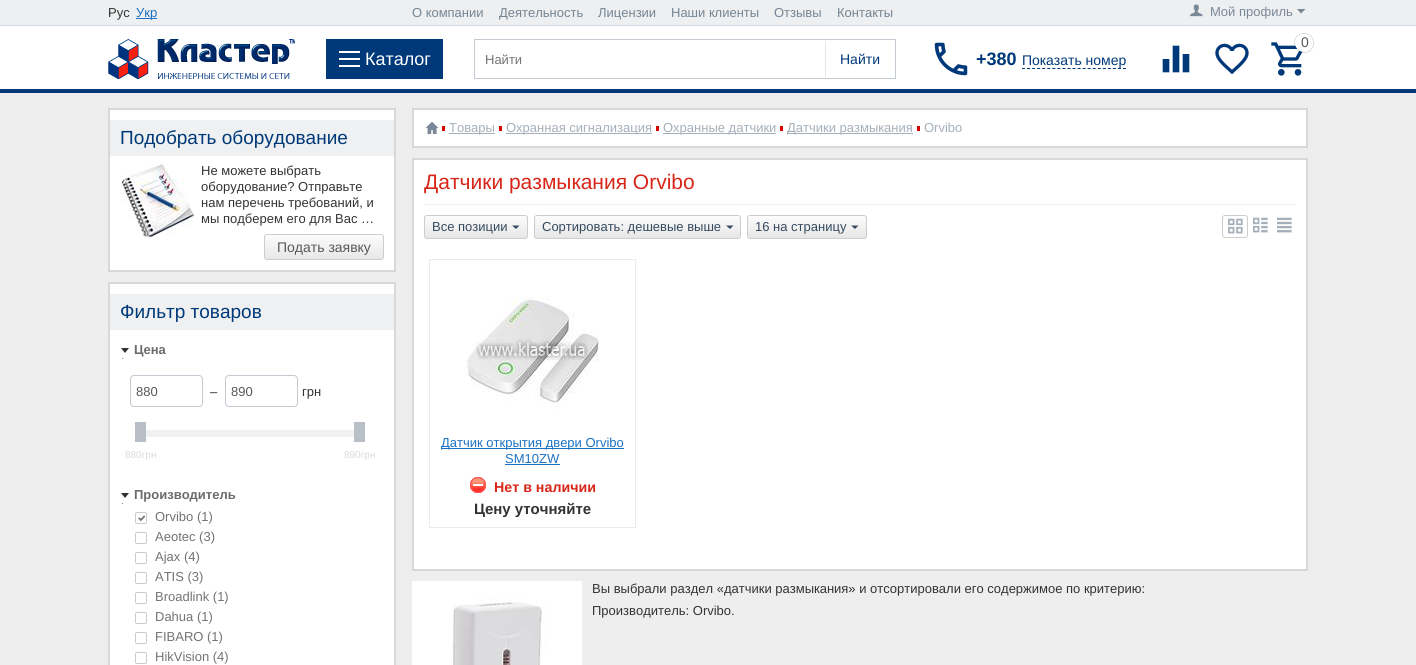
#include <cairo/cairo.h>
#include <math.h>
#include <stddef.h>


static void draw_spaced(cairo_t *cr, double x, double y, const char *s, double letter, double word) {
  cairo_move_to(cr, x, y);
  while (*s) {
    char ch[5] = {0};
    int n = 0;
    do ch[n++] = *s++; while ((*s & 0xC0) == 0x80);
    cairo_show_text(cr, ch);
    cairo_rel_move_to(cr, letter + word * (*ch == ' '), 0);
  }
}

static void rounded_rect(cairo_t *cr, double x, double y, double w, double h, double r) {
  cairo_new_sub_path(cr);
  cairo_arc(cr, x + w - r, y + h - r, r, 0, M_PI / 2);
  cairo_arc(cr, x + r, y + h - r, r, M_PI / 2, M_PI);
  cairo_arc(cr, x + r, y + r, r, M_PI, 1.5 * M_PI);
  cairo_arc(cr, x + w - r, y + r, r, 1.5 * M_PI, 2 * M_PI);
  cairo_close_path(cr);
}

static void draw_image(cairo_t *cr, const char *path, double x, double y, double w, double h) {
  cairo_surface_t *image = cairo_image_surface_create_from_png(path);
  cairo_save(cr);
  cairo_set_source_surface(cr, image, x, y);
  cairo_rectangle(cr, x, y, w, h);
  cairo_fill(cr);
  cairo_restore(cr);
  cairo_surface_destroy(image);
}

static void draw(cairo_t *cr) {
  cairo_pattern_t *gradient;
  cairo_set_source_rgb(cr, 238 / 255.0, 238 / 255.0, 238 / 255.0);
  cairo_paint(cr);
  cairo_set_source_rgb(cr, 237 / 255.0, 239 / 255.0, 241 / 255.0);
  cairo_rectangle(cr, 0, 0, 1416, 25);
  cairo_fill(cr);
  cairo_set_source_rgb(cr, 27 / 255.0, 114 / 255.0, 194 / 255.0);
  cairo_rectangle(cr, 136, 18, 21, 1);
  cairo_fill(cr);
  draw_image(cr, "images/1.png", 1190, 4, 13, 13);
  cairo_set_source_rgb(cr, 122 / 255.0, 137 / 255.0, 152 / 255.0);
  cairo_new_path(cr);
  cairo_move_to(cr, 1301, 13.5);
  cairo_line_to(cr, 1297, 9);
  cairo_line_to(cr, 1305.5, 9);
  cairo_close_path(cr);
  cairo_fill(cr);
  cairo_set_source_rgb(cr, 1, 1, 1);
  cairo_rectangle(cr, 0, 26, 1416, 63);
  cairo_fill(cr);
  cairo_set_source_rgb(cr, 209 / 255.0, 216 / 255.0, 230 / 255.0);
  cairo_rectangle(cr, 0, 25, 1416, 1);
  cairo_fill(cr);
  draw_image(cr, "images/2.png", 108, 39, 187, 40);
  cairo_set_source_rgb(cr, 0, 57 / 255.0, 121 / 255.0);
  cairo_rectangle(cr, 326, 39, 117, 40);
  cairo_fill(cr);
  cairo_set_source_rgb(cr, 1, 1, 1);
  cairo_rectangle(cr, 339, 58, 21, 2);
  cairo_fill(cr);
  cairo_rectangle(cr, 339, 51, 21, 2);
  cairo_fill(cr);
  cairo_rectangle(cr, 339, 65, 21, 2);
  cairo_fill(cr);
  cairo_rectangle(cr, 474.5, 39.5, 421, 39);
  cairo_set_source_rgb(cr, 194 / 255.0, 201 / 255.0, 208 / 255.0);
  cairo_set_line_width(cr, 1);
  cairo_stroke(cr);
  cairo_new_path(cr);
  cairo_move_to(cr, 826, 77);
  cairo_line_to(cr, 825.5, 76);
  cairo_line_to(cr, 825.5, 42);
  cairo_line_to(cr, 826, 41);
  cairo_set_source_rgb(cr, 229 / 255.0, 229 / 255.0, 229 / 255.0);
  cairo_stroke(cr);
  draw_image(cr, "images/3.png", 934, 42, 34, 34);
  cairo_new_path(cr);
  cairo_move_to(cr, 1022, 68.5);
  cairo_line_to(cr, 1126, 68.5);
  cairo_set_source_rgb(cr, 0, 57 / 255.0, 121 / 255.0);
  cairo_set_dash(cr, (double[]){3, 2.05}, 2, 0);
  cairo_stroke(cr);
  draw_image(cr, "images/4.png", 1162, 45, 28, 28);
  draw_image(cr, "images/5.png", 1215, 43, 34, 32);
  draw_image(cr, "images/6.png", 1271, 42, 32, 34);
  cairo_arc(cr, 1304, 43, 9.5, 0, 2 * M_PI);
  cairo_set_source_rgba(cr, 0, 0, 0, 0.15);
  cairo_set_dash(cr, NULL, 0, 0);
  cairo_stroke(cr);
  cairo_set_source_rgb(cr, 1, 1, 1);
  cairo_arc(cr, 1304, 43, 9, 0, 2 * M_PI);
  cairo_fill(cr);
  cairo_set_source_rgb(cr, 0, 57 / 255.0, 121 / 255.0);
  cairo_rectangle(cr, 0, 89, 1416, 4);
  cairo_fill(cr);
  cairo_set_source_rgb(cr, 1, 1, 1);
  cairo_rectangle(cr, 109, 109, 286, 162);
  cairo_fill_preserve(cr);
  cairo_set_source_rgb(cr, 216 / 255.0, 216 / 255.0, 216 / 255.0);
  cairo_set_line_width(cr, 2);
  cairo_stroke(cr);
  cairo_set_source_rgb(cr, 238 / 255.0, 240 / 255.0, 241 / 255.0);
  cairo_rectangle(cr, 110, 120, 284, 36);
  cairo_fill(cr);
  draw_image(cr, "images/7.png", 120, 163, 75, 75);
  cairo_save(cr);
  rounded_rect(cr, 264, 234, 120, 26, 3);
  cairo_clip(cr);
  gradient = cairo_pattern_create_linear(324, 235, 324, 259);
  cairo_pattern_add_color_stop_rgba(gradient, 0, 252 / 255.0, 252 / 255.0, 252 / 255.0, 1);
  cairo_pattern_add_color_stop_rgba(gradient, 1, 231 / 255.0, 231 / 255.0, 231 / 255.0, 1);
  cairo_set_source(cr, gradient);
  cairo_pattern_destroy(gradient);
  cairo_rectangle(cr, 264, 235, 120, 24);
  cairo_fill(cr);
  cairo_restore(cr);
  rounded_rect(cr, 264.5, 234.5, 119, 25, 2.5);
  cairo_set_source_rgb(cr, 205 / 255.0, 205 / 255.0, 205 / 255.0);
  cairo_set_line_width(cr, 1);
  cairo_stroke(cr);
  cairo_set_source_rgb(cr, 1, 1, 1);
  cairo_rectangle(cr, 109, 283, 286, 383);
  cairo_fill_preserve(cr);
  cairo_set_source_rgb(cr, 216 / 255.0, 216 / 255.0, 216 / 255.0);
  cairo_set_line_width(cr, 2);
  cairo_stroke(cr);
  cairo_set_source_rgb(cr, 238 / 255.0, 240 / 255.0, 241 / 255.0);
  cairo_rectangle(cr, 110, 294, 284, 36);
  cairo_fill(cr);
  draw_image(cr, "images/8.png", 121, 348, 8, 11);
  rounded_rect(cr, 130.5, 375.5, 72, 31, 3.5);
  cairo_set_source_rgb(cr, 194 / 255.0, 201 / 255.0, 208 / 255.0);
  cairo_set_line_width(cr, 1);
  cairo_stroke(cr);
  rounded_rect(cr, 225.5, 375.5, 72, 31, 3.5);
  cairo_stroke(cr);
  cairo_set_source_rgb(cr, 239 / 255.0, 241 / 255.0, 242 / 255.0);
  cairo_rectangle(cr, 143, 430, 219, 7);
  cairo_fill(cr);
  cairo_set_source_rgb(cr, 184 / 255.0, 191 / 255.0, 199 / 255.0);
  cairo_rectangle(cr, 135, 422, 11, 20);
  cairo_fill(cr);
  cairo_rectangle(cr, 354, 422, 11, 20);
  cairo_fill(cr);
  draw_image(cr, "images/8.png", 121, 493, 8, 11);
  rounded_rect(cr, 135.5, 512.5, 11, 11, 1.5);
  cairo_set_source_rgb(cr, 204 / 255.0, 204 / 255.0, 204 / 255.0);
  cairo_stroke(cr);
  draw_image(cr, "images/9.png", 138, 515, 8, 7);
  rounded_rect(cr, 135.5, 532.5, 11, 11, 1.5);
  cairo_stroke(cr);
  rounded_rect(cr, 135.5, 552.5, 11, 11, 1.5);
  cairo_stroke(cr);
  rounded_rect(cr, 135.5, 572.5, 11, 11, 1.5);
  cairo_stroke(cr);
  rounded_rect(cr, 135.5, 592.5, 11, 11, 1.5);
  cairo_stroke(cr);
  rounded_rect(cr, 135.5, 612.5, 11, 11, 1.5);
  cairo_stroke(cr);
  rounded_rect(cr, 135.5, 632.5, 11, 11, 1.5);
  cairo_stroke(cr);
  rounded_rect(cr, 135.5, 652.5, 11, 11, 1.5);
  cairo_stroke(cr);
  cairo_set_source_rgb(cr, 1, 1, 1);
  cairo_rectangle(cr, 413, 109, 894, 38);
  cairo_fill_preserve(cr);
  cairo_set_source_rgb(cr, 216 / 255.0, 216 / 255.0, 216 / 255.0);
  cairo_set_line_width(cr, 2);
  cairo_stroke(cr);
  draw_image(cr, "images/10.png", 426, 122, 12, 12);
  cairo_set_source_rgb(cr, 215 / 255.0, 1 / 255.0, 0);
  cairo_rectangle(cr, 442, 126, 3, 5);
  cairo_fill(cr);
  cairo_set_source_rgb(cr, 165 / 255.0, 175 / 255.0, 185 / 255.0);
  cairo_rectangle(cr, 449, 133, 46, 1);
  cairo_fill(cr);
  cairo_set_source_rgb(cr, 215 / 255.0, 1 / 255.0, 0);
  cairo_rectangle(cr, 499, 126, 3, 5);
  cairo_fill(cr);
  cairo_set_source_rgb(cr, 165 / 255.0, 175 / 255.0, 185 / 255.0);
  cairo_rectangle(cr, 506, 133, 146, 1);
  cairo_fill(cr);
  cairo_set_source_rgb(cr, 215 / 255.0, 1 / 255.0, 0);
  cairo_rectangle(cr, 656, 126, 3, 5);
  cairo_fill(cr);
  cairo_set_source_rgb(cr, 165 / 255.0, 175 / 255.0, 185 / 255.0);
  cairo_rectangle(cr, 663, 133, 113, 1);
  cairo_fill(cr);
  cairo_set_source_rgb(cr, 215 / 255.0, 1 / 255.0, 0);
  cairo_rectangle(cr, 780, 126, 3, 5);
  cairo_fill(cr);
  cairo_set_source_rgb(cr, 165 / 255.0, 175 / 255.0, 185 / 255.0);
  cairo_rectangle(cr, 787, 133, 126, 1);
  cairo_fill(cr);
  cairo_set_source_rgb(cr, 215 / 255.0, 1 / 255.0, 0);
  cairo_rectangle(cr, 917, 126, 3, 5);
  cairo_fill(cr);
  cairo_set_source_rgb(cr, 1, 1, 1);
  cairo_rectangle(cr, 413, 159, 894, 411);
  cairo_fill_preserve(cr);
  cairo_set_source_rgb(cr, 216 / 255.0, 216 / 255.0, 216 / 255.0);
  cairo_stroke(cr);
  cairo_set_source_rgb(cr, 237 / 255.0, 239 / 255.0, 241 / 255.0);
  cairo_rectangle(cr, 424, 204, 872, 1);
  cairo_fill(cr);
  cairo_save(cr);
  rounded_rect(cr, 424, 215, 104, 24, 3);
  cairo_clip(cr);
  gradient = cairo_pattern_create_linear(476, 216, 476, 238);
  cairo_pattern_add_color_stop_rgba(gradient, 0, 252 / 255.0, 252 / 255.0, 252 / 255.0, 1);
  cairo_pattern_add_color_stop_rgba(gradient, 1, 231 / 255.0, 231 / 255.0, 231 / 255.0, 1);
  cairo_set_source(cr, gradient);
  cairo_pattern_destroy(gradient);
  cairo_rectangle(cr, 424, 216, 104, 22);
  cairo_fill(cr);
  cairo_restore(cr);
  rounded_rect(cr, 424.5, 215.5, 103, 23, 2.5);
  cairo_set_source_rgb(cr, 205 / 255.0, 205 / 255.0, 205 / 255.0);
  cairo_set_line_width(cr, 1);
  cairo_stroke(cr);
  cairo_set_source_rgb(cr, 52 / 255.0, 73 / 255.0, 94 / 255.0);
  cairo_new_path(cr);
  cairo_move_to(cr, 516, 229);
  cairo_line_to(cr, 512, 225.5);
  cairo_line_to(cr, 519.5, 225.5);
  cairo_close_path(cr);
  cairo_fill(cr);
  cairo_save(cr);
  rounded_rect(cr, 534, 215, 207, 24, 3);
  cairo_clip(cr);
  gradient = cairo_pattern_create_linear(638, 216, 638, 238);
  cairo_pattern_add_color_stop_rgba(gradient, 0, 252 / 255.0, 252 / 255.0, 252 / 255.0, 1);
  cairo_pattern_add_color_stop_rgba(gradient, 1, 231 / 255.0, 231 / 255.0, 231 / 255.0, 1);
  cairo_set_source(cr, gradient);
  cairo_pattern_destroy(gradient);
  cairo_rectangle(cr, 534, 216, 207, 22);
  cairo_fill(cr);
  cairo_restore(cr);
  rounded_rect(cr, 534.5, 215.5, 206, 23, 2.5);
  cairo_set_source_rgb(cr, 205 / 255.0, 205 / 255.0, 205 / 255.0);
  cairo_stroke(cr);
  cairo_set_source_rgb(cr, 52 / 255.0, 73 / 255.0, 94 / 255.0);
  cairo_new_path(cr);
  cairo_move_to(cr, 730, 229);
  cairo_line_to(cr, 726, 225.5);
  cairo_line_to(cr, 733.5, 225.5);
  cairo_close_path(cr);
  cairo_fill(cr);
  cairo_save(cr);
  rounded_rect(cr, 747, 215, 120, 24, 3);
  cairo_clip(cr);
  gradient = cairo_pattern_create_linear(807, 216, 807, 238);
  cairo_pattern_add_color_stop_rgba(gradient, 0, 252 / 255.0, 252 / 255.0, 252 / 255.0, 1);
  cairo_pattern_add_color_stop_rgba(gradient, 1, 231 / 255.0, 231 / 255.0, 231 / 255.0, 1);
  cairo_set_source(cr, gradient);
  cairo_pattern_destroy(gradient);
  cairo_rectangle(cr, 747, 216, 120, 22);
  cairo_fill(cr);
  cairo_restore(cr);
  rounded_rect(cr, 747.5, 215.5, 119, 23, 2.5);
  cairo_set_source_rgb(cr, 205 / 255.0, 205 / 255.0, 205 / 255.0);
  cairo_stroke(cr);
  cairo_set_source_rgb(cr, 52 / 255.0, 73 / 255.0, 94 / 255.0);
  cairo_new_path(cr);
  cairo_move_to(cr, 855, 229);
  cairo_line_to(cr, 851, 225.5);
  cairo_line_to(cr, 858.5, 225.5);
  cairo_close_path(cr);
  cairo_fill(cr);
  rounded_rect(cr, 1222.5, 215.5, 25, 22, 2.5);
  cairo_set_source_rgb(cr, 205 / 255.0, 205 / 255.0, 205 / 255.0);
  cairo_stroke(cr);
  draw_image(cr, "images/11.png", 1228, 218, 15, 16);
  draw_image(cr, "images/12.png", 1253, 217, 15, 16);
  draw_image(cr, "images/13.png", 1277, 217, 15, 16);
  cairo_rectangle(cr, 429.5, 259.5, 206, 268);
  cairo_set_source_rgb(cr, 235 / 255.0, 235 / 255.0, 235 / 255.0);
  cairo_stroke(cr);
  draw_image(cr, "images/14.png", 464, 297, 135, 112);
  cairo_set_source_rgb(cr, 27 / 255.0, 114 / 255.0, 194 / 255.0);
  cairo_rectangle(cr, 441, 448, 183, 1);
  cairo_fill(cr);
  cairo_rectangle(cr, 505, 464, 55, 1);
  cairo_fill(cr);
  draw_image(cr, "images/15.png", 470, 477, 16, 16);
  draw_image(cr, "images/16.png", 412, 581, 170, 84);
  cairo_select_font_face(cr, "Liberation Sans", CAIRO_FONT_SLANT_NORMAL, CAIRO_FONT_WEIGHT_NORMAL);
  cairo_set_font_size(cr, 13);
  cairo_set_source_rgb(cr, 51 / 255.0, 51 / 255.0, 51 / 255.0);
  cairo_move_to(cr, 108, 17);
  cairo_show_text(cr, "Рус");
  cairo_set_source_rgb(cr, 27 / 255.0, 114 / 255.0, 194 / 255.0);
  cairo_move_to(cr, 136, 17);
  cairo_show_text(cr, "Укр");
  cairo_set_source_rgb(cr, 116 / 255.0, 133 / 255.0, 147 / 255.0);
  cairo_move_to(cr, 412, 17);
  cairo_show_text(cr, "О компании");
  cairo_move_to(cr, 499, 17);
  cairo_show_text(cr, "Деятельность");
  cairo_move_to(cr, 598, 17);
  cairo_show_text(cr, "Лицензии");
  cairo_move_to(cr, 671, 17);
  cairo_show_text(cr, "Наши клиенты");
  cairo_move_to(cr, 774, 17);
  cairo_show_text(cr, "Отзывы");
  cairo_move_to(cr, 837, 17);
  cairo_show_text(cr, "Контакты");
  cairo_set_source_rgb(cr, 122 / 255.0, 137 / 255.0, 152 / 255.0);
  cairo_move_to(cr, 1210, 16);
  cairo_show_text(cr, "Мой профиль");
  cairo_set_font_size(cr, 18);
  cairo_set_source_rgb(cr, 1, 1, 1);
  cairo_move_to(cr, 365, 65);
  cairo_show_text(cr, "Каталог");
  cairo_set_font_size(cr, 13);
  cairo_set_source_rgb(cr, 115 / 255.0, 115 / 255.0, 115 / 255.0);
  cairo_move_to(cr, 485, 64);
  cairo_show_text(cr, "Найти");
  cairo_set_font_size(cr, 14);
  cairo_set_source_rgb(cr, 0, 57 / 255.0, 121 / 255.0);
  cairo_move_to(cr, 840, 64);
  cairo_show_text(cr, "Найти");
  cairo_select_font_face(cr, "Liberation Sans", CAIRO_FONT_SLANT_NORMAL, CAIRO_FONT_WEIGHT_BOLD);
  cairo_set_font_size(cr, 18);
  cairo_move_to(cr, 976, 65);
  cairo_show_text(cr, "+380");
  cairo_select_font_face(cr, "Liberation Sans", CAIRO_FONT_SLANT_NORMAL, CAIRO_FONT_WEIGHT_NORMAL);
  cairo_set_font_size(cr, 14);
  cairo_move_to(cr, 1022, 65);
  cairo_show_text(cr, "Показать номер");
  cairo_set_source_rgb(cr, 89 / 255.0, 89 / 255.0, 89 / 255.0);
  draw_spaced(cr, 1301, 47, "0", -1, 0);
  cairo_set_font_size(cr, 19);
  cairo_set_source_rgb(cr, 0, 57 / 255.0, 121 / 255.0);
  cairo_move_to(cr, 120, 144);
  cairo_show_text(cr, "Подобрать оборудование");
  cairo_set_font_size(cr, 13);
  cairo_set_source_rgb(cr, 51 / 255.0, 51 / 255.0, 51 / 255.0);
  cairo_move_to(cr, 201, 175);
  cairo_show_text(cr, "Не можете выбрать");
  cairo_move_to(cr, 201, 191);
  cairo_show_text(cr, "оборудование? Отправьте");
  cairo_move_to(cr, 201, 207);
  cairo_show_text(cr, "нам перечень требований, и");
  cairo_move_to(cr, 201, 223);
  cairo_show_text(cr, "мы подберем его для Вас …");
  cairo_set_font_size(cr, 14);
  cairo_set_source_rgb(cr, 89 / 255.0, 89 / 255.0, 89 / 255.0);
  cairo_move_to(cr, 277, 252);
  cairo_show_text(cr, "Подать заявку");
  cairo_set_font_size(cr, 19);
  cairo_set_source_rgb(cr, 0, 57 / 255.0, 121 / 255.0);
  cairo_move_to(cr, 120, 318);
  cairo_show_text(cr, "Фильтр товаров");
  cairo_select_font_face(cr, "Liberation Sans", CAIRO_FONT_SLANT_NORMAL, CAIRO_FONT_WEIGHT_BOLD);
  cairo_set_font_size(cr, 13);
  cairo_set_source_rgb(cr, 107 / 255.0, 107 / 255.0, 107 / 255.0);
  cairo_move_to(cr, 134, 354);
  cairo_show_text(cr, "Цена");
  cairo_select_font_face(cr, "Liberation Sans", CAIRO_FONT_SLANT_NORMAL, CAIRO_FONT_WEIGHT_NORMAL);
  cairo_set_source_rgb(cr, 89 / 255.0, 89 / 255.0, 89 / 255.0);
  cairo_move_to(cr, 136, 396);
  cairo_show_text(cr, "880");
  cairo_set_source_rgb(cr, 51 / 255.0, 51 / 255.0, 51 / 255.0);
  cairo_move_to(cr, 210, 396);
  cairo_show_text(cr, "–");
  cairo_set_source_rgb(cr, 89 / 255.0, 89 / 255.0, 89 / 255.0);
  cairo_move_to(cr, 231, 396);
  cairo_show_text(cr, "890");
  cairo_set_source_rgb(cr, 51 / 255.0, 51 / 255.0, 51 / 255.0);
  cairo_move_to(cr, 302, 396);
  cairo_show_text(cr, "грн");
  cairo_set_font_size(cr, 10);
  cairo_set_source_rgb(cr, 216 / 255.0, 218 / 255.0, 219 / 255.0);
  cairo_move_to(cr, 125, 458);
  cairo_show_text(cr, "880грн");
  cairo_move_to(cr, 344, 458);
  cairo_show_text(cr, "890грн");
  cairo_select_font_face(cr, "Liberation Sans", CAIRO_FONT_SLANT_NORMAL, CAIRO_FONT_WEIGHT_BOLD);
  cairo_set_font_size(cr, 13);
  cairo_set_source_rgb(cr, 107 / 255.0, 107 / 255.0, 107 / 255.0);
  cairo_move_to(cr, 134, 499);
  cairo_show_text(cr, "Производитель");
  cairo_select_font_face(cr, "Liberation Sans", CAIRO_FONT_SLANT_NORMAL, CAIRO_FONT_WEIGHT_NORMAL);
  cairo_set_source_rgb(cr, 115 / 255.0, 115 / 255.0, 115 / 255.0);
  cairo_move_to(cr, 155, 521);
  cairo_show_text(cr, "Orvibo (1)");
  cairo_move_to(cr, 155, 541);
  cairo_show_text(cr, "Aeotec (3)");
  cairo_move_to(cr, 155, 561);
  cairo_show_text(cr, "Ajax (4)");
  cairo_move_to(cr, 155, 581);
  cairo_show_text(cr, "ATIS (3)");
  cairo_move_to(cr, 155, 601);
  cairo_show_text(cr, "Broadlink (1)");
  cairo_move_to(cr, 155, 621);
  cairo_show_text(cr, "Dahua (1)");
  cairo_move_to(cr, 155, 641);
  cairo_show_text(cr, "FIBARO (1)");
  cairo_move_to(cr, 155, 661);
  cairo_show_text(cr, "HikVision (4)");
  cairo_set_source_rgb(cr, 165 / 255.0, 175 / 255.0, 185 / 255.0);
  cairo_move_to(cr, 449, 132);
  cairo_show_text(cr, "Товары");
  cairo_move_to(cr, 506, 132);
  cairo_show_text(cr, "Охранная сигнализация");
  cairo_move_to(cr, 663, 132);
  cairo_show_text(cr, "Охранные датчики");
  cairo_move_to(cr, 787, 132);
  cairo_show_text(cr, "Датчики размыкания");
  cairo_move_to(cr, 924, 132);
  cairo_show_text(cr, "Orvibo");
  cairo_set_font_size(cr, 21);
  cairo_set_source_rgb(cr, 216 / 255.0, 38 / 255.0, 25 / 255.0);
  cairo_move_to(cr, 424, 189);
  cairo_show_text(cr, "Датчики размыкания Orvibo");
  cairo_set_font_size(cr, 13);
  cairo_set_source_rgb(cr, 52 / 255.0, 73 / 255.0, 94 / 255.0);
  cairo_move_to(cr, 432, 231);
  cairo_show_text(cr, "Все позиции");
  cairo_move_to(cr, 542, 231);
  cairo_show_text(cr, "Сортировать: дешевые выше");
  cairo_move_to(cr, 755, 231);
  cairo_show_text(cr, "16 на страницу");
  cairo_set_source_rgb(cr, 27 / 255.0, 114 / 255.0, 194 / 255.0);
  cairo_move_to(cr, 441, 447);
  cairo_show_text(cr, "Датчик открытия двери Orvibo");
  cairo_move_to(cr, 505, 463);
  cairo_show_text(cr, "SM10ZW");
  cairo_select_font_face(cr, "Liberation Sans", CAIRO_FONT_SLANT_NORMAL, CAIRO_FONT_WEIGHT_BOLD);
  cairo_set_font_size(cr, 14.25);
  cairo_set_source_rgb(cr, 216 / 255.0, 38 / 255.0, 25 / 255.0);
  cairo_move_to(cr, 494, 492);
  cairo_show_text(cr, "Нет в наличии");
  cairo_set_font_size(cr, 15);
  cairo_set_source_rgb(cr, 51 / 255.0, 51 / 255.0, 51 / 255.0);
  cairo_move_to(cr, 474, 514);
  cairo_show_text(cr, "Цену уточняйте");
  cairo_select_font_face(cr, "Liberation Sans", CAIRO_FONT_SLANT_NORMAL, CAIRO_FONT_WEIGHT_NORMAL);
  cairo_set_font_size(cr, 13);
  cairo_move_to(cr, 592, 593);
  cairo_show_text(cr, "Вы выбрали раздел «датчики размыкания» и отсортировали его содержимое по критерию:");
  cairo_move_to(cr, 592, 615);
  cairo_show_text(cr, "Производитель: Orvibo.");
}

int main(void) {
  cairo_surface_t *surface = cairo_image_surface_create(CAIRO_FORMAT_RGB24, 1416, 665);
  cairo_t *cr = cairo_create(surface);
  cairo_font_options_t *options = cairo_font_options_create();
  cairo_font_options_set_hint_metrics(options, CAIRO_HINT_METRICS_OFF);
  cairo_font_options_set_hint_style(options, CAIRO_HINT_STYLE_NONE);
  cairo_set_font_options(cr, options);
  cairo_set_miter_limit(cr, 4);
  draw(cr);
  cairo_surface_write_to_png(surface, "out.png");
  cairo_font_options_destroy(options);
  cairo_destroy(cr);
  cairo_surface_destroy(surface);
  return 0;
}
